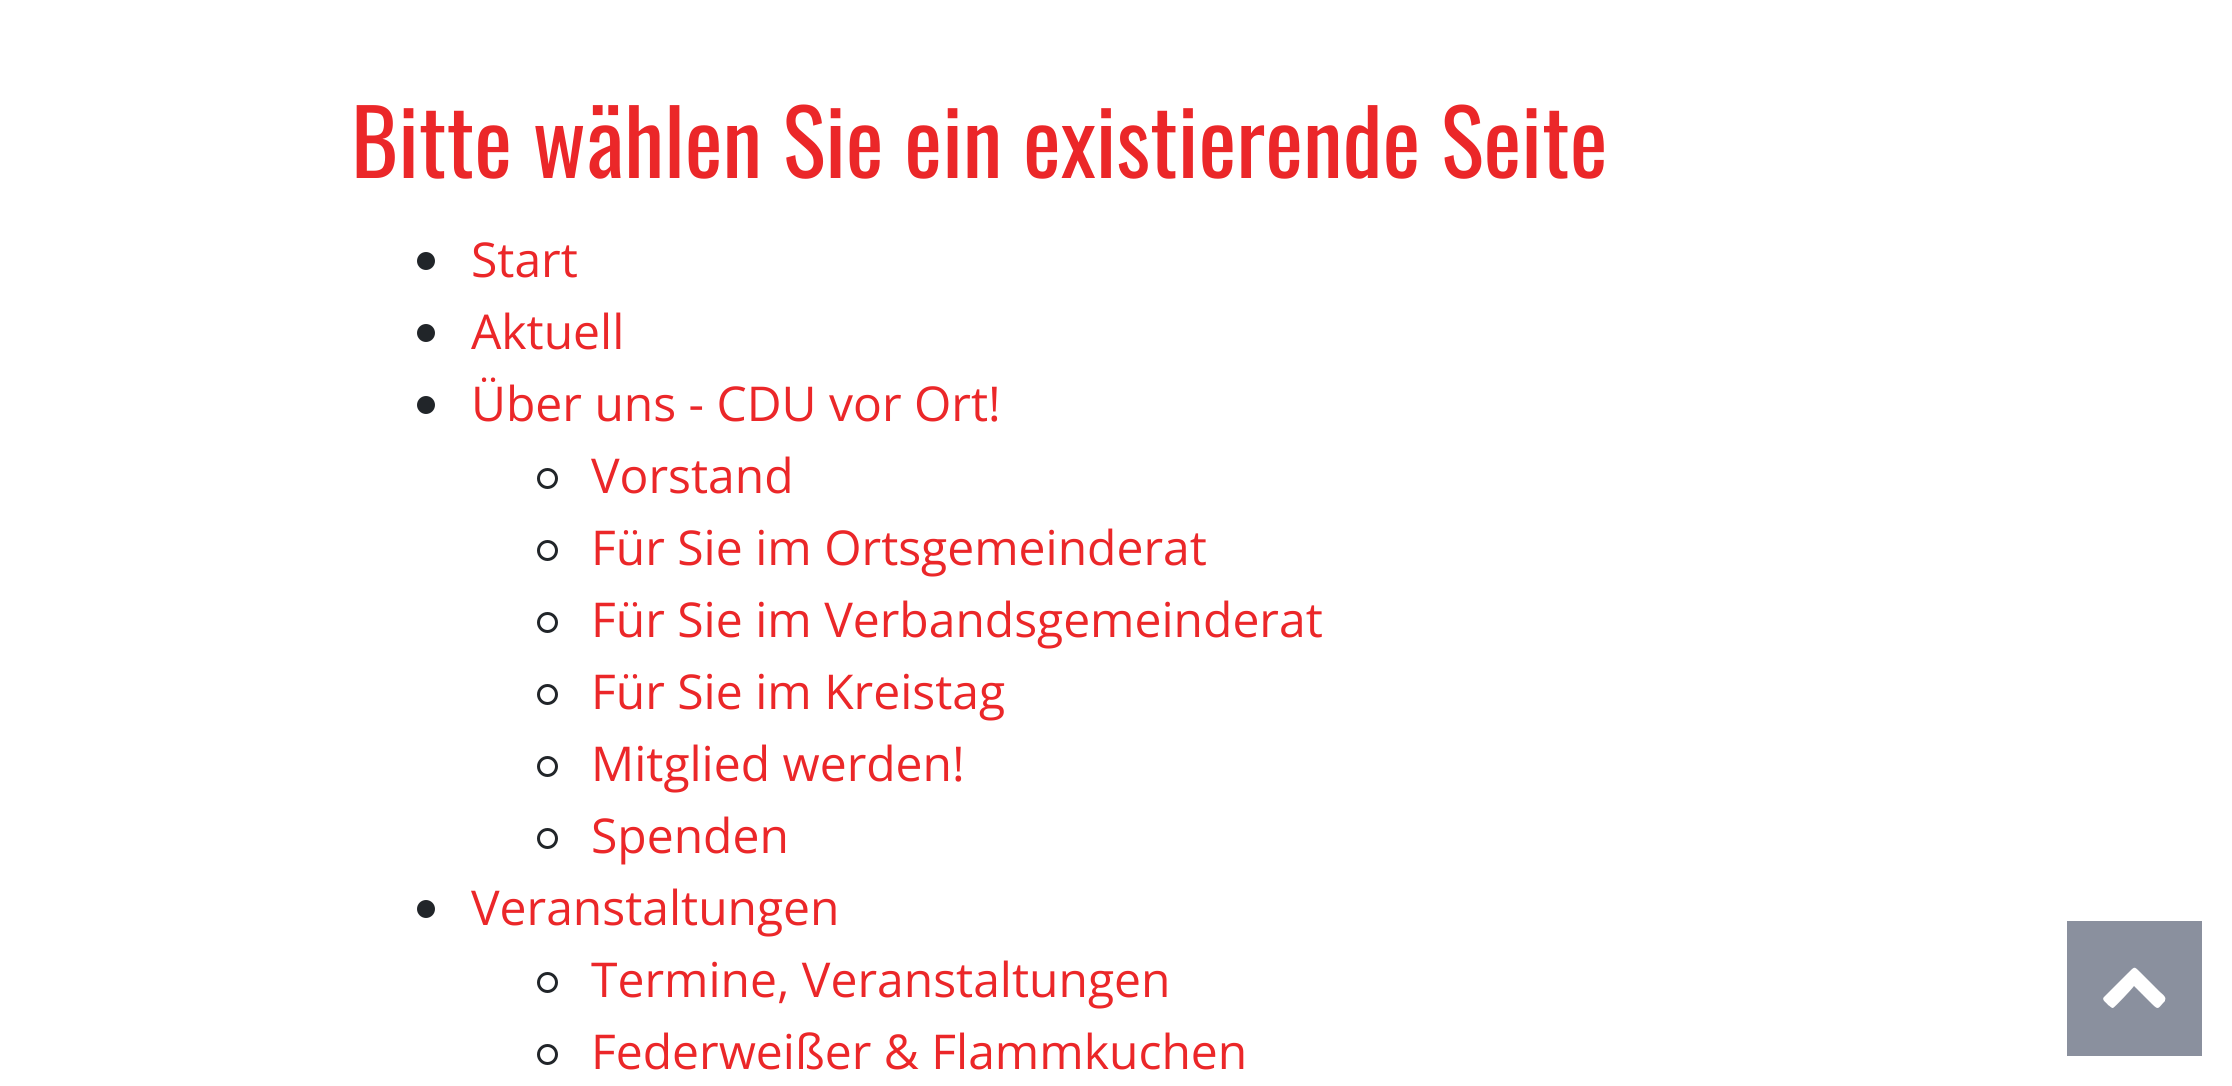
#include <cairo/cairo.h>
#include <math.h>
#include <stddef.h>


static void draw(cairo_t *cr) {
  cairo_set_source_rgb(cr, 1, 1, 1);
  cairo_paint(cr);
  cairo_set_source_rgb(cr, 33 / 255.0, 37 / 255.0, 41 / 255.0);
  cairo_arc(cr, 426, 261, 9, 0, 2 * M_PI);
  cairo_fill(cr);
  cairo_arc(cr, 426, 333, 9, 0, 2 * M_PI);
  cairo_fill(cr);
  cairo_arc(cr, 426, 405, 9, 0, 2 * M_PI);
  cairo_fill(cr);
  cairo_arc(cr, 547.5, 478.5, 9, 0, 2 * M_PI);
  cairo_set_line_width(cr, 3);
  cairo_stroke(cr);
  cairo_arc(cr, 547.5, 550.5, 9, 0, 2 * M_PI);
  cairo_stroke(cr);
  cairo_arc(cr, 547.5, 622.5, 9, 0, 2 * M_PI);
  cairo_stroke(cr);
  cairo_arc(cr, 547.5, 694.5, 9, 0, 2 * M_PI);
  cairo_stroke(cr);
  cairo_arc(cr, 547.5, 766.5, 9, 0, 2 * M_PI);
  cairo_stroke(cr);
  cairo_arc(cr, 547.5, 838.5, 9, 0, 2 * M_PI);
  cairo_stroke(cr);
  cairo_arc(cr, 426, 909, 9, 0, 2 * M_PI);
  cairo_fill(cr);
  cairo_arc(cr, 547.5, 982.5, 9, 0, 2 * M_PI);
  cairo_stroke(cr);
  cairo_arc(cr, 547.5, 1054.5, 9, 0, 2 * M_PI);
  cairo_stroke(cr);
  cairo_set_source_rgb(cr, 138 / 255.0, 144 / 255.0, 158 / 255.0);
  cairo_rectangle(cr, 2067, 921, 135, 135);
  cairo_fill(cr);
  cairo_set_source_rgb(cr, 1, 1, 1);
  cairo_new_path(cr);
  cairo_move_to(cr, 2165, 1001);
  cairo_curve_to(cr, 2158, 1008, 2159, 1011, 2152, 1004);
  cairo_line_to(cr, 2134, 986);
  cairo_curve_to(cr, 2132, 989, 2115, 1007, 2113, 1008);
  cairo_curve_to(cr, 2111, 1008, 2110, 1006, 2108, 1005);
  cairo_curve_to(cr, 2107, 1003, 2101, 1000, 2104, 997);
  cairo_line_to(cr, 2128, 973);
  cairo_curve_to(cr, 2135, 966, 2134, 966, 2141, 973);
  cairo_line_to(cr, 2160, 992);
  cairo_curve_to(cr, 2161, 993, 2167, 997, 2165, 1000);
  cairo_close_path(cr);
  cairo_fill(cr);
  cairo_select_font_face(cr, "Oswald", CAIRO_FONT_SLANT_NORMAL, CAIRO_FONT_WEIGHT_NORMAL);
  cairo_set_font_size(cr, 90);
  cairo_set_source_rgb(cr, 235 / 255.0, 39 / 255.0, 41 / 255.0);
  cairo_move_to(cr, 351, 178);
  cairo_show_text(cr, "Bitte wählen Sie ein existierende Seite");
  cairo_select_font_face(cr, "Open Sans", CAIRO_FONT_SLANT_NORMAL, CAIRO_FONT_WEIGHT_NORMAL);
  cairo_set_font_size(cr, 48);
  cairo_move_to(cr, 471, 277);
  cairo_show_text(cr, "Start");
  cairo_move_to(cr, 471, 349);
  cairo_show_text(cr, "Aktuell");
  cairo_move_to(cr, 471, 421);
  cairo_show_text(cr, "Über uns - CDU vor Ort!");
  cairo_move_to(cr, 591, 493);
  cairo_show_text(cr, "Vorstand");
  cairo_move_to(cr, 591, 565);
  cairo_show_text(cr, "Für Sie im Ortsgemeinderat");
  cairo_move_to(cr, 591, 637);
  cairo_show_text(cr, "Für Sie im Verbandsgemeinderat");
  cairo_move_to(cr, 591, 709);
  cairo_show_text(cr, "Für Sie im Kreistag");
  cairo_move_to(cr, 591, 781);
  cairo_show_text(cr, "Mitglied werden!");
  cairo_move_to(cr, 591, 853);
  cairo_show_text(cr, "Spenden");
  cairo_move_to(cr, 471, 925);
  cairo_show_text(cr, "Veranstaltungen");
  cairo_move_to(cr, 591, 997);
  cairo_show_text(cr, "Termine, Veranstaltungen");
  cairo_move_to(cr, 591, 1069);
  cairo_show_text(cr, "Federweißer & Flammkuchen");
}

int main(void) {
  cairo_surface_t *surface = cairo_image_surface_create(CAIRO_FORMAT_RGB24, 2232, 1086);
  cairo_t *cr = cairo_create(surface);
  cairo_font_options_t *options = cairo_font_options_create();
  cairo_font_options_set_hint_metrics(options, CAIRO_HINT_METRICS_OFF);
  cairo_font_options_set_hint_style(options, CAIRO_HINT_STYLE_NONE);
  cairo_set_font_options(cr, options);
  cairo_set_miter_limit(cr, 4);
  draw(cr);
  cairo_surface_write_to_png(surface, "out.png");
  cairo_font_options_destroy(options);
  cairo_destroy(cr);
  cairo_surface_destroy(surface);
  return 0;
}
